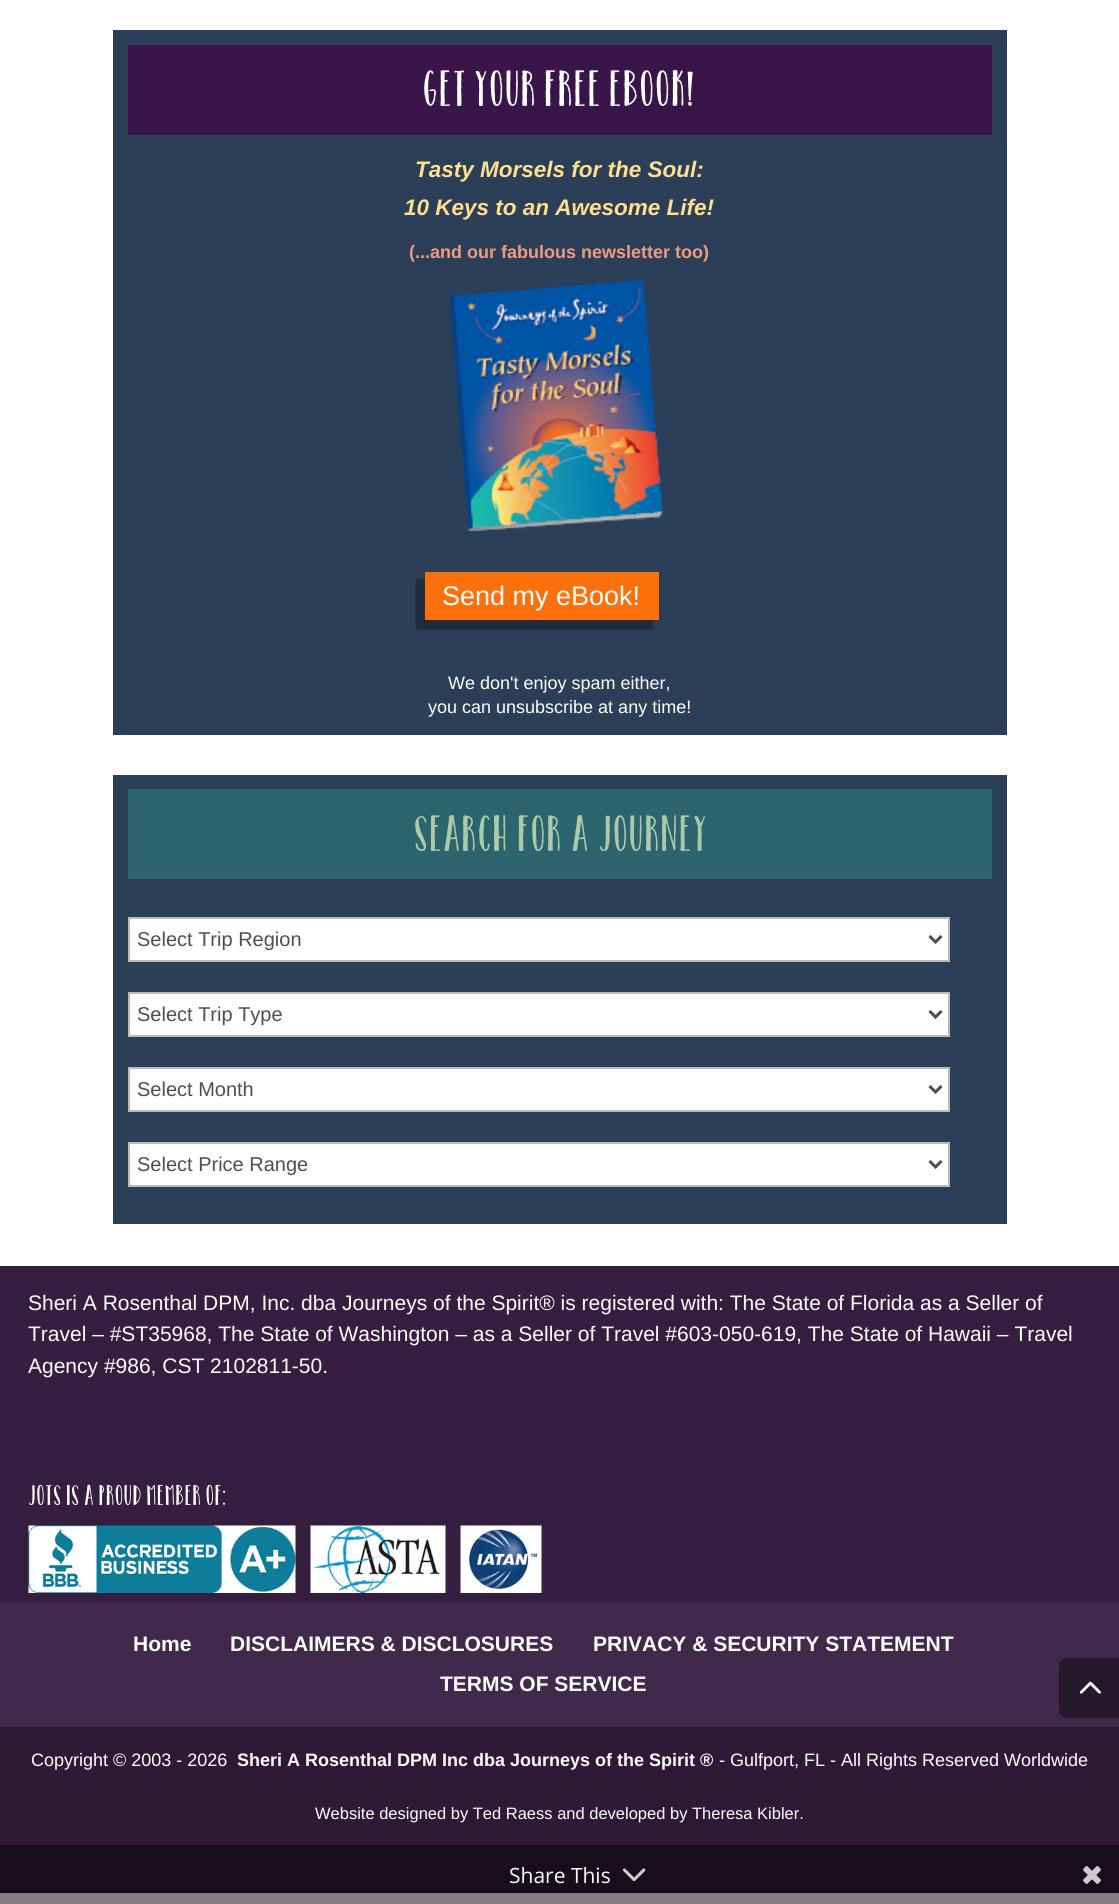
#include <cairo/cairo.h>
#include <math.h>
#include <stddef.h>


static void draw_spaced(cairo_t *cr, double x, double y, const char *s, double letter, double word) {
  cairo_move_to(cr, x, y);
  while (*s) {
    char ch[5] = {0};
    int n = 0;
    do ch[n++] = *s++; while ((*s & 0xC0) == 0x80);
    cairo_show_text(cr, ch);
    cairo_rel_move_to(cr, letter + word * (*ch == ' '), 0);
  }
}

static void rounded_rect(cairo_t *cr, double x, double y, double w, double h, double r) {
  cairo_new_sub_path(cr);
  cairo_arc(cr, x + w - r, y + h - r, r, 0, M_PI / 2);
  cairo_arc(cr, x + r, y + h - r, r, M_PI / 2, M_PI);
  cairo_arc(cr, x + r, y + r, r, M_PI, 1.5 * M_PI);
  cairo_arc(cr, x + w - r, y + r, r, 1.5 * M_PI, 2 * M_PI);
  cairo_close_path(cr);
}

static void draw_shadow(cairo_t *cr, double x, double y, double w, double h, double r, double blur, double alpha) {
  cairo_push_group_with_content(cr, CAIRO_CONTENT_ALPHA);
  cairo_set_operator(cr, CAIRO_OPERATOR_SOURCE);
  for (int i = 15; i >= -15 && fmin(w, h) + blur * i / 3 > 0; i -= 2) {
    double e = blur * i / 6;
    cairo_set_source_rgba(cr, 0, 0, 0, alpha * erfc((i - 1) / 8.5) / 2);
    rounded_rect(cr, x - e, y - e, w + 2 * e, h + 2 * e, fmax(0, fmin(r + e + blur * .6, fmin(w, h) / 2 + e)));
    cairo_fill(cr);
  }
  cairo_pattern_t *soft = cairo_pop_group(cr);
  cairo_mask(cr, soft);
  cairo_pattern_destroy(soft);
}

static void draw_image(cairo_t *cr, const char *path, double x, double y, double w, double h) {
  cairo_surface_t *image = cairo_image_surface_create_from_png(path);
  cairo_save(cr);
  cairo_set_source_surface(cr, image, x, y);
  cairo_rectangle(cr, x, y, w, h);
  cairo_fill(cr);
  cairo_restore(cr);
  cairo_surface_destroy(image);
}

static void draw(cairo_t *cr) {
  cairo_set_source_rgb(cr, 1, 1, 1);
  cairo_paint(cr);
  cairo_set_source_rgb(cr, 128 / 255.0, 128 / 255.0, 128 / 255.0);
  cairo_rectangle(cr, 0, 1893, 1119, 11);
  cairo_fill(cr);
  cairo_set_source_rgb(cr, 43 / 255.0, 63 / 255.0, 88 / 255.0);
  cairo_rectangle(cr, 113, 30, 894, 705);
  cairo_fill(cr);
  cairo_set_source_rgb(cr, 58 / 255.0, 21 / 255.0, 73 / 255.0);
  cairo_rectangle(cr, 128, 45, 864, 90);
  cairo_fill(cr);
  draw_image(cr, "images/1.png", 450, 279, 213, 252);
  cairo_set_source_rgb(cr, 0, 0, 0);
  draw_shadow(cr, 416, 579, 237, 51, 0, 1, 0.3);
  cairo_set_source_rgb(cr, 250 / 255.0, 112 / 255.0, 11 / 255.0);
  cairo_rectangle(cr, 425, 572, 234, 48);
  cairo_fill(cr);
  cairo_set_source_rgb(cr, 43 / 255.0, 63 / 255.0, 88 / 255.0);
  cairo_rectangle(cr, 113, 775, 894, 449);
  cairo_fill(cr);
  cairo_set_source_rgb(cr, 44 / 255.0, 101 / 255.0, 110 / 255.0);
  cairo_rectangle(cr, 128, 789, 864, 90);
  cairo_fill(cr);
  cairo_set_source_rgb(cr, 1, 1, 1);
  cairo_rectangle(cr, 129, 918, 820, 43);
  cairo_fill_preserve(cr);
  cairo_set_source_rgb(cr, 187 / 255.0, 187 / 255.0, 187 / 255.0);
  cairo_stroke(cr);
  cairo_new_path(cr);
  cairo_move_to(cr, 929.5, 936);
  cairo_line_to(cr, 935.5, 942);
  cairo_line_to(cr, 941.5, 936);
  cairo_set_source_rgb(cr, 78 / 255.0, 78 / 255.0, 78 / 255.0);
  cairo_set_line_width(cr, 3);
  cairo_stroke(cr);
  cairo_set_source_rgb(cr, 1, 1, 1);
  cairo_rectangle(cr, 129, 993, 820, 43);
  cairo_fill_preserve(cr);
  cairo_set_source_rgb(cr, 187 / 255.0, 187 / 255.0, 187 / 255.0);
  cairo_set_line_width(cr, 2);
  cairo_stroke(cr);
  cairo_new_path(cr);
  cairo_move_to(cr, 929.5, 1011);
  cairo_line_to(cr, 935.5, 1017);
  cairo_line_to(cr, 941.5, 1011);
  cairo_set_source_rgb(cr, 78 / 255.0, 78 / 255.0, 78 / 255.0);
  cairo_set_line_width(cr, 3);
  cairo_stroke(cr);
  cairo_set_source_rgb(cr, 1, 1, 1);
  cairo_rectangle(cr, 129, 1068, 820, 43);
  cairo_fill_preserve(cr);
  cairo_set_source_rgb(cr, 187 / 255.0, 187 / 255.0, 187 / 255.0);
  cairo_set_line_width(cr, 2);
  cairo_stroke(cr);
  cairo_new_path(cr);
  cairo_move_to(cr, 929.5, 1086);
  cairo_line_to(cr, 935.5, 1092);
  cairo_line_to(cr, 941.5, 1086);
  cairo_set_source_rgb(cr, 78 / 255.0, 78 / 255.0, 78 / 255.0);
  cairo_set_line_width(cr, 3);
  cairo_stroke(cr);
  cairo_set_source_rgb(cr, 1, 1, 1);
  cairo_rectangle(cr, 129, 1143, 820, 43);
  cairo_fill_preserve(cr);
  cairo_set_source_rgb(cr, 187 / 255.0, 187 / 255.0, 187 / 255.0);
  cairo_set_line_width(cr, 2);
  cairo_stroke(cr);
  cairo_new_path(cr);
  cairo_move_to(cr, 929.5, 1161);
  cairo_line_to(cr, 935.5, 1167);
  cairo_line_to(cr, 941.5, 1161);
  cairo_set_source_rgb(cr, 78 / 255.0, 78 / 255.0, 78 / 255.0);
  cairo_set_line_width(cr, 3);
  cairo_stroke(cr);
  cairo_set_source_rgb(cr, 54 / 255.0, 30 / 255.0, 64 / 255.0);
  cairo_rectangle(cr, 0, 1266, 1119, 336);
  cairo_fill(cr);
  draw_image(cr, "images/2.png", 28, 1525, 268, 68);
  draw_image(cr, "images/3.png", 310, 1525, 136, 68);
  draw_image(cr, "images/4.png", 460, 1525, 82, 68);
  cairo_set_source_rgb(cr, 64 / 255.0, 41 / 255.0, 74 / 255.0);
  cairo_rectangle(cr, 0, 1602, 1119, 125);
  cairo_fill(cr);
  cairo_set_source_rgb(cr, 46 / 255.0, 26 / 255.0, 54 / 255.0);
  cairo_rectangle(cr, 0, 1727, 1119, 118);
  cairo_fill(cr);
  cairo_set_source_rgb(cr, 23 / 255.0, 13 / 255.0, 27 / 255.0);
  cairo_rectangle(cr, 0, 1845, 1119, 48);
  cairo_fill(cr);
  cairo_set_source_rgb(cr, 38 / 255.0, 25 / 255.0, 44 / 255.0);
  cairo_new_path(cr);
  cairo_move_to(cr, 1067, 1658);
  cairo_line_to(cr, 1119, 1658);
  cairo_line_to(cr, 1119, 1718);
  cairo_line_to(cr, 1067, 1718);
  cairo_curve_to(cr, 1062.5, 1718, 1059, 1714.5, 1059, 1710);
  cairo_line_to(cr, 1059, 1666);
  cairo_curve_to(cr, 1059, 1661.5, 1062.5, 1658, 1067, 1658);
  cairo_close_path(cr);
  cairo_fill(cr);
  draw_image(cr, "images/5.png", 1079, 1681, 22, 13);
  draw_image(cr, "images/6.png", 622, 1868, 24, 14);
  draw_image(cr, "images/7.png", 1083, 1866, 18, 18);
  cairo_select_font_face(cr, "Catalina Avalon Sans", CAIRO_FONT_SLANT_NORMAL, CAIRO_FONT_WEIGHT_NORMAL);
  cairo_set_font_size(cr, 48);
  cairo_set_source_rgb(cr, 1, 1, 1);
  draw_spaced(cr, 422, 106, "Get your free eBook!", 0, -1);
  cairo_select_font_face(cr, "Liberation Sans", CAIRO_FONT_SLANT_ITALIC, CAIRO_FONT_WEIGHT_BOLD);
  cairo_set_font_size(cr, 22.5);
  cairo_set_source_rgb(cr, 1, 222 / 255.0, 141 / 255.0);
  cairo_move_to(cr, 415, 177);
  cairo_show_text(cr, "Tasty Morsels for the Soul:");
  cairo_move_to(cr, 404, 215);
  cairo_show_text(cr, "10 Keys to an Awesome Life!");
  cairo_select_font_face(cr, "Liberation Sans", CAIRO_FONT_SLANT_NORMAL, CAIRO_FONT_WEIGHT_BOLD);
  cairo_set_font_size(cr, 18);
  cairo_set_source_rgb(cr, 240 / 255.0, 155 / 255.0, 124 / 255.0);
  cairo_move_to(cr, 409, 258);
  cairo_show_text(cr, "(...and our fabulous newsletter too)");
  cairo_select_font_face(cr, "Liberation Sans", CAIRO_FONT_SLANT_NORMAL, CAIRO_FONT_WEIGHT_NORMAL);
  cairo_set_font_size(cr, 27);
  cairo_set_source_rgb(cr, 1, 1, 1);
  cairo_move_to(cr, 442, 605);
  cairo_show_text(cr, "Send my eBook!");
  cairo_set_font_size(cr, 18);
  cairo_move_to(cr, 448, 689);
  cairo_show_text(cr, "We don't enjoy spam either,");
  cairo_move_to(cr, 428, 713);
  cairo_show_text(cr, "you can unsubscribe at any time!");
  cairo_select_font_face(cr, "Catalina Avalon Sans", CAIRO_FONT_SLANT_NORMAL, CAIRO_FONT_WEIGHT_NORMAL);
  cairo_set_font_size(cr, 48);
  cairo_set_source_rgb(cr, 171 / 255.0, 202 / 255.0, 170 / 255.0);
  draw_spaced(cr, 413, 851, "Search for a Journey", 0, 0.5);
  cairo_select_font_face(cr, "Liberation Sans", CAIRO_FONT_SLANT_NORMAL, CAIRO_FONT_WEIGHT_NORMAL);
  cairo_set_font_size(cr, 20);
  cairo_set_source_rgb(cr, 78 / 255.0, 78 / 255.0, 78 / 255.0);
  cairo_move_to(cr, 137, 946);
  cairo_show_text(cr, "Select Trip Region");
  cairo_move_to(cr, 137, 1021);
  cairo_show_text(cr, "Select Trip Type");
  cairo_move_to(cr, 137, 1096);
  cairo_show_text(cr, "Select Month");
  cairo_move_to(cr, 137, 1171);
  cairo_show_text(cr, "Select Price Range");
  cairo_set_font_size(cr, 21);
  cairo_set_source_rgb(cr, 1, 1, 1);
  cairo_move_to(cr, 28, 1310);
  cairo_show_text(cr, "Sheri A Rosenthal DPM, Inc. dba Journeys of the Spirit® is registered with: The State of Florida as a Seller of");
  cairo_move_to(cr, 28, 1341);
  cairo_show_text(cr, "Travel – #ST35968, The State of Washington – as a Seller of Travel #603-050-619, The State of Hawaii – Travel");
  cairo_move_to(cr, 28, 1373);
  cairo_show_text(cr, "Agency #986, CST 2102811-50.");
  cairo_select_font_face(cr, "Catalina Avalon Sans", CAIRO_FONT_SLANT_NORMAL, CAIRO_FONT_WEIGHT_NORMAL);
  cairo_set_font_size(cr, 27);
  draw_spaced(cr, 28, 1505, "JOTS is a proud member of:", 0, -0.5);
  cairo_select_font_face(cr, "Liberation Sans", CAIRO_FONT_SLANT_NORMAL, CAIRO_FONT_WEIGHT_BOLD);
  cairo_set_font_size(cr, 21);
  cairo_move_to(cr, 133, 1651);
  cairo_show_text(cr, "Home");
  cairo_move_to(cr, 230, 1651);
  cairo_show_text(cr, "DISCLAIMERS & DISCLOSURES");
  cairo_move_to(cr, 593, 1651);
  cairo_show_text(cr, "PRIVACY & SECURITY STATEMENT");
  cairo_move_to(cr, 440, 1691);
  cairo_show_text(cr, "TERMS OF SERVICE");
  cairo_select_font_face(cr, "Liberation Sans", CAIRO_FONT_SLANT_NORMAL, CAIRO_FONT_WEIGHT_NORMAL);
  cairo_set_font_size(cr, 18);
  cairo_move_to(cr, 31, 1766);
  cairo_show_text(cr, "Copyright © 2003 - 2026");
  cairo_select_font_face(cr, "Liberation Sans", CAIRO_FONT_SLANT_NORMAL, CAIRO_FONT_WEIGHT_BOLD);
  cairo_move_to(cr, 237, 1766);
  cairo_show_text(cr, "Sheri A Rosenthal DPM Inc dba Journeys of the Spirit ®");
  cairo_select_font_face(cr, "Liberation Sans", CAIRO_FONT_SLANT_NORMAL, CAIRO_FONT_WEIGHT_NORMAL);
  cairo_move_to(cr, 719, 1766);
  cairo_show_text(cr, "- Gulfport, FL - All Rights Reserved Worldwide");
  cairo_set_font_size(cr, 16.5);
  cairo_move_to(cr, 315, 1819);
  cairo_show_text(cr, "Website designed by Ted Raess and developed by Theresa Kibler.");
  cairo_select_font_face(cr, "Open Sans", CAIRO_FONT_SLANT_NORMAL, CAIRO_FONT_WEIGHT_NORMAL);
  cairo_set_font_size(cr, 21);
  cairo_move_to(cr, 509, 1883);
  cairo_show_text(cr, "Share This");
}

int main(void) {
  cairo_surface_t *surface = cairo_image_surface_create(CAIRO_FORMAT_RGB24, 1119, 1904);
  cairo_t *cr = cairo_create(surface);
  cairo_font_options_t *options = cairo_font_options_create();
  cairo_font_options_set_hint_metrics(options, CAIRO_HINT_METRICS_OFF);
  cairo_font_options_set_hint_style(options, CAIRO_HINT_STYLE_NONE);
  cairo_set_font_options(cr, options);
  cairo_set_miter_limit(cr, 4);
  draw(cr);
  cairo_surface_write_to_png(surface, "out.png");
  cairo_font_options_destroy(options);
  cairo_destroy(cr);
  cairo_surface_destroy(surface);
  return 0;
}
